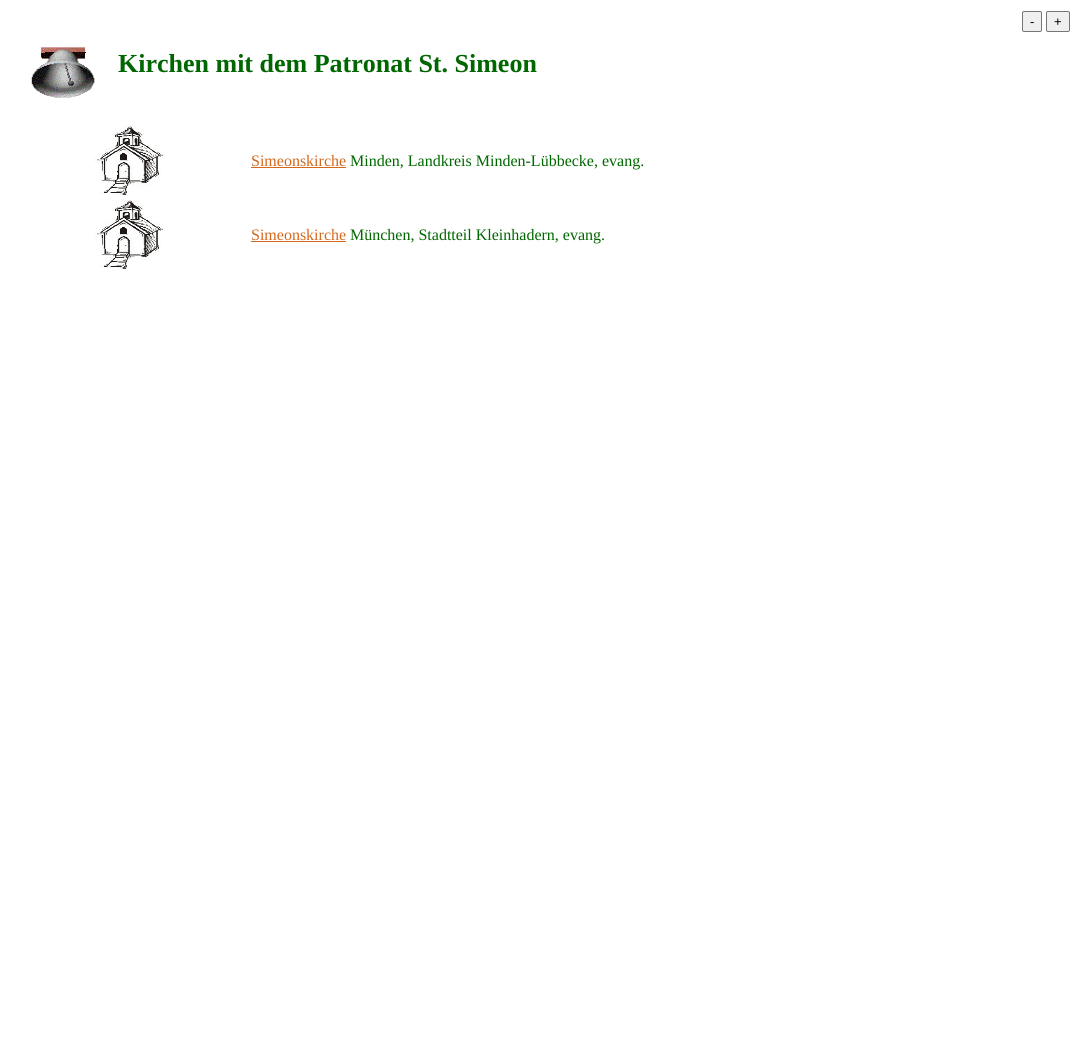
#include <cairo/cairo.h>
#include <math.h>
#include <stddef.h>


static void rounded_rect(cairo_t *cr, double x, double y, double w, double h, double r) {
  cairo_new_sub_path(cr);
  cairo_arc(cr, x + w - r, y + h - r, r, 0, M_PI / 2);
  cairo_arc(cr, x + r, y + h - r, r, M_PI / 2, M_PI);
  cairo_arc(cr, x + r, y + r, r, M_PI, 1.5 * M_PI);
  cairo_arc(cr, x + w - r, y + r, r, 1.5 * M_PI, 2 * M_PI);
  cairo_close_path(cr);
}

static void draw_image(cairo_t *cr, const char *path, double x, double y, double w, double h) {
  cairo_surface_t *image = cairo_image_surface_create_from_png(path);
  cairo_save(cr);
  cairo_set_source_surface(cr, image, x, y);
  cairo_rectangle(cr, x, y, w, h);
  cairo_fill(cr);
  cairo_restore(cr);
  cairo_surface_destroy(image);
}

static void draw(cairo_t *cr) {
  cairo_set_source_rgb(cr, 1, 1, 1);
  cairo_paint(cr);
  cairo_set_source_rgb(cr, 239 / 255.0, 239 / 255.0, 239 / 255.0);
  rounded_rect(cr, 1022.5, 11.5, 19, 20, 1.5);
  cairo_fill_preserve(cr);
  cairo_set_source_rgb(cr, 118 / 255.0, 118 / 255.0, 118 / 255.0);
  cairo_set_line_width(cr, 1);
  cairo_stroke(cr);
  cairo_set_source_rgb(cr, 239 / 255.0, 239 / 255.0, 239 / 255.0);
  rounded_rect(cr, 1046.5, 11.5, 23, 20, 1.5);
  cairo_fill_preserve(cr);
  cairo_set_source_rgb(cr, 118 / 255.0, 118 / 255.0, 118 / 255.0);
  cairo_stroke(cr);
  draw_image(cr, "images/1.png", 31, 47, 64, 51);
  draw_image(cr, "images/2.png", 94, 126, 69, 70);
  cairo_set_source_rgb(cr, 210 / 255.0, 105 / 255.0, 30 / 255.0);
  cairo_rectangle(cr, 251, 167, 95, 1);
  cairo_fill(cr);
  draw_image(cr, "images/2.png", 94, 200, 69, 70);
  cairo_rectangle(cr, 251, 241, 95, 1);
  cairo_fill(cr);
  cairo_select_font_face(cr, "Liberation Sans", CAIRO_FONT_SLANT_NORMAL, CAIRO_FONT_WEIGHT_NORMAL);
  cairo_set_font_size(cr, 13);
  cairo_set_source_rgb(cr, 0, 0, 0);
  cairo_move_to(cr, 1030, 26);
  cairo_show_text(cr, "-");
  cairo_move_to(cr, 1054, 26);
  cairo_show_text(cr, "+");
  cairo_select_font_face(cr, "Liberation Serif", CAIRO_FONT_SLANT_NORMAL, CAIRO_FONT_WEIGHT_BOLD);
  cairo_set_font_size(cr, 26);
  cairo_set_source_rgb(cr, 0, 102 / 255.0, 0);
  cairo_move_to(cr, 118, 72);
  cairo_show_text(cr, "Kirchen mit dem Patronat St. Simeon");
  cairo_select_font_face(cr, "Liberation Serif", CAIRO_FONT_SLANT_NORMAL, CAIRO_FONT_WEIGHT_NORMAL);
  cairo_set_font_size(cr, 16);
  cairo_set_source_rgb(cr, 210 / 255.0, 105 / 255.0, 30 / 255.0);
  cairo_move_to(cr, 251, 166);
  cairo_show_text(cr, "Simeonskirche");
  cairo_set_source_rgb(cr, 0, 102 / 255.0, 0);
  cairo_move_to(cr, 350, 166);
  cairo_show_text(cr, "Minden, Landkreis Minden-Lübbecke, evang.");
  cairo_set_source_rgb(cr, 210 / 255.0, 105 / 255.0, 30 / 255.0);
  cairo_move_to(cr, 251, 240);
  cairo_show_text(cr, "Simeonskirche");
  cairo_set_source_rgb(cr, 0, 102 / 255.0, 0);
  cairo_move_to(cr, 350, 240);
  cairo_show_text(cr, "München, Stadtteil Kleinhadern, evang.");
}

int main(void) {
  cairo_surface_t *surface = cairo_image_surface_create(CAIRO_FORMAT_RGB24, 1081, 1051);
  cairo_t *cr = cairo_create(surface);
  cairo_font_options_t *options = cairo_font_options_create();
  cairo_font_options_set_hint_metrics(options, CAIRO_HINT_METRICS_OFF);
  cairo_font_options_set_hint_style(options, CAIRO_HINT_STYLE_NONE);
  cairo_set_font_options(cr, options);
  cairo_set_miter_limit(cr, 4);
  draw(cr);
  cairo_surface_write_to_png(surface, "out.png");
  cairo_font_options_destroy(options);
  cairo_destroy(cr);
  cairo_surface_destroy(surface);
  return 0;
}
